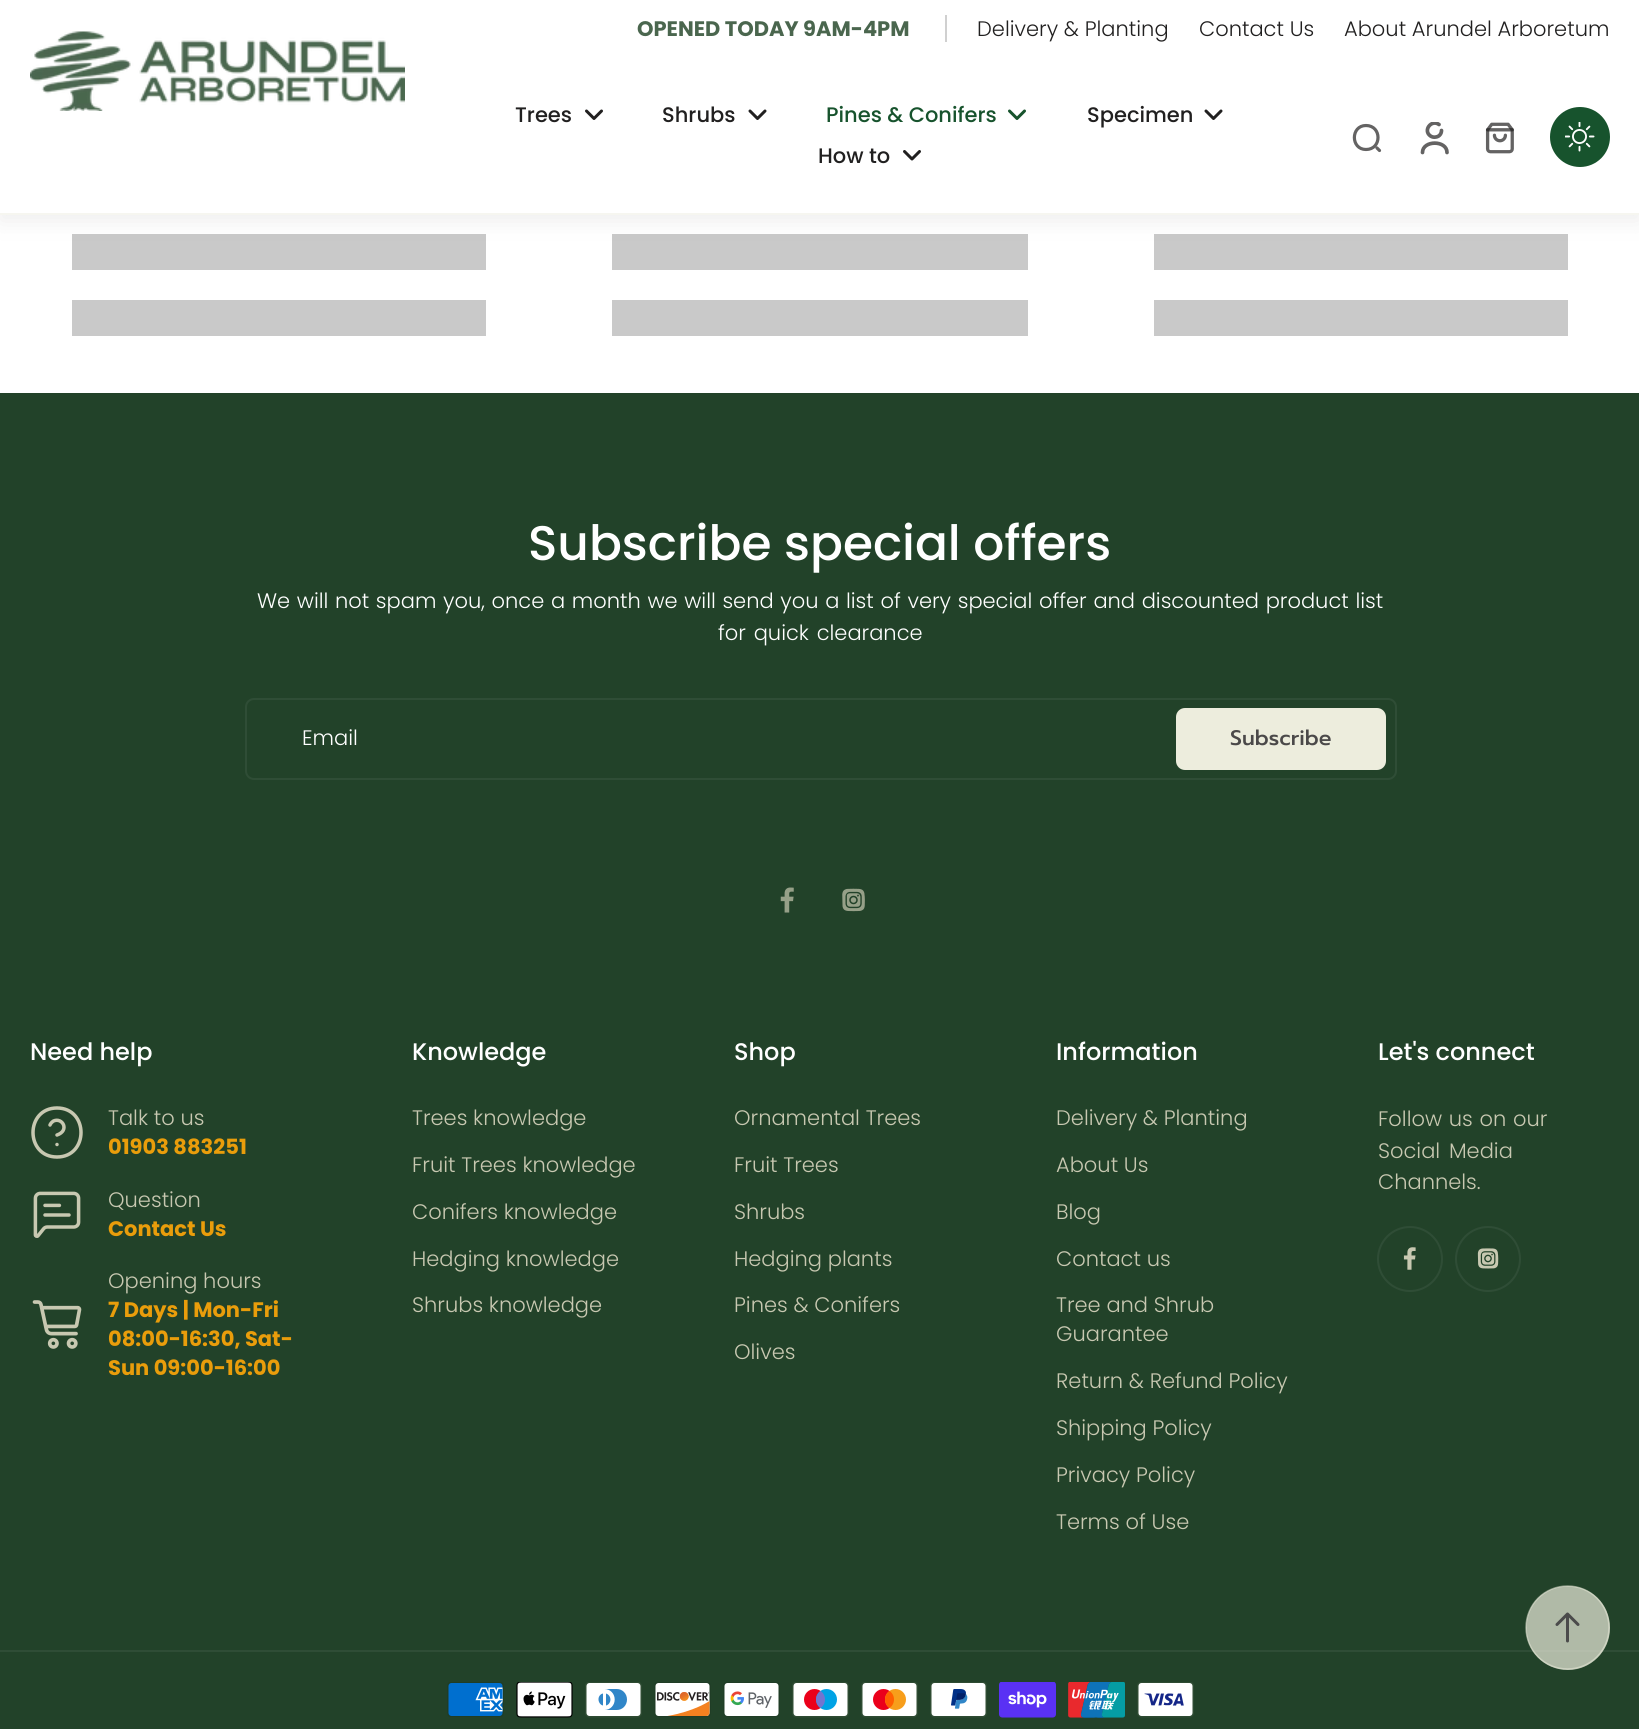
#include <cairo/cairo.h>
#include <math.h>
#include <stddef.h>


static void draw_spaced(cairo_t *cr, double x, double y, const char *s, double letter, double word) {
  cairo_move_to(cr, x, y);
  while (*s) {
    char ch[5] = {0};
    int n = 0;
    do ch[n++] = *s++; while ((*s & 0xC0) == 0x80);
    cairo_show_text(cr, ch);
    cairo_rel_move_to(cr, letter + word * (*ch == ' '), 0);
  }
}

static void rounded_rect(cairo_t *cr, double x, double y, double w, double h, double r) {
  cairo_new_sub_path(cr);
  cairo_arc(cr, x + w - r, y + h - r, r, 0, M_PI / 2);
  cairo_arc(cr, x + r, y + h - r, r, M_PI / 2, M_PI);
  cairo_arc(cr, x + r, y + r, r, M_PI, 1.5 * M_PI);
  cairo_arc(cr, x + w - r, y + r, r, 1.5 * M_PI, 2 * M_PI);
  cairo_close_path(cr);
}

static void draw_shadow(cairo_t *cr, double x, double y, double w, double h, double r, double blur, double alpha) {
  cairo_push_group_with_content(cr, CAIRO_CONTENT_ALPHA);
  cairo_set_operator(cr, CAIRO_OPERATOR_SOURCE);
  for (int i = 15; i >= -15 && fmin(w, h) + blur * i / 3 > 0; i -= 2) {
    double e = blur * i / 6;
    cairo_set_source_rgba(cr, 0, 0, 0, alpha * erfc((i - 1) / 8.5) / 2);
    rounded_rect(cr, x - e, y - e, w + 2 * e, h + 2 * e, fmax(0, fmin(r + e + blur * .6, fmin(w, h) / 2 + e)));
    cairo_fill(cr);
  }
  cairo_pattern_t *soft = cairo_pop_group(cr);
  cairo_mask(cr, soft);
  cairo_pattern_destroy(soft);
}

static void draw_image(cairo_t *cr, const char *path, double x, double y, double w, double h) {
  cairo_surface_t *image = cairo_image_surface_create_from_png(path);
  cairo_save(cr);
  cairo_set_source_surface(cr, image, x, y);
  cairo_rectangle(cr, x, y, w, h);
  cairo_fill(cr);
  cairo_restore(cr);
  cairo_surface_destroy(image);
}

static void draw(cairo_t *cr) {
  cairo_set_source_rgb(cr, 1, 1, 1);
  cairo_paint(cr);
  cairo_set_source_rgb(cr, 201 / 255.0, 201 / 255.0, 201 / 255.0);
  cairo_rectangle(cr, 72, 234, 414, 36);
  cairo_fill(cr);
  cairo_rectangle(cr, 612, 234, 416, 36);
  cairo_fill(cr);
  cairo_rectangle(cr, 1154, 234, 414, 36);
  cairo_fill(cr);
  cairo_set_source_rgb(cr, 75 / 255.0, 73 / 255.0, 73 / 255.0);
  draw_shadow(cr, 0, 8, 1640, 213, 0, 11, 0.1);
  cairo_set_source_rgb(cr, 1, 1, 1);
  cairo_rectangle(cr, 0, 0, 1639, 213);
  cairo_fill(cr);
  cairo_set_source_rgb(cr, 208 / 255.0, 208 / 255.0, 208 / 255.0);
  cairo_rectangle(cr, 945, 15, 2, 27);
  cairo_fill(cr);
  draw_image(cr, "images/1.png", 30, 31, 375, 80);
  cairo_new_path(cr);
  cairo_move_to(cr, 586.5, 111);
  cairo_line_to(cr, 594, 118.5);
  cairo_line_to(cr, 601.5, 111);
  cairo_set_source_rgb(cr, 33 / 255.0, 32 / 255.0, 32 / 255.0);
  cairo_set_line_width(cr, 3);
  cairo_set_line_cap(cr, CAIRO_LINE_CAP_ROUND);
  cairo_set_line_join(cr, CAIRO_LINE_JOIN_ROUND);
  cairo_stroke(cr);
  cairo_new_path(cr);
  cairo_move_to(cr, 750, 111);
  cairo_line_to(cr, 757.5, 118.5);
  cairo_line_to(cr, 765, 111);
  cairo_stroke(cr);
  cairo_new_path(cr);
  cairo_move_to(cr, 1009.5, 111);
  cairo_line_to(cr, 1017, 118.5);
  cairo_line_to(cr, 1024.5, 111);
  cairo_set_source_rgb(cr, 23 / 255.0, 83 / 255.0, 45 / 255.0);
  cairo_stroke(cr);
  cairo_new_path(cr);
  cairo_move_to(cr, 1206, 111);
  cairo_line_to(cr, 1213.5, 118.5);
  cairo_line_to(cr, 1221, 111);
  cairo_set_source_rgb(cr, 33 / 255.0, 32 / 255.0, 32 / 255.0);
  cairo_stroke(cr);
  cairo_new_path(cr);
  cairo_move_to(cr, 904.5, 151.5);
  cairo_line_to(cr, 912, 159);
  cairo_line_to(cr, 919.5, 151.5);
  cairo_stroke(cr);
  cairo_new_path(cr);
  cairo_move_to(cr, 1366, 149.5);
  cairo_curve_to(cr, 1382, 149.5, 1382, 125.5, 1366, 125.5);
  cairo_curve_to(cr, 1350.5, 125.5, 1350.5, 149.5, 1366, 149.5);
  cairo_close_path(cr);
  cairo_move_to(cr, 1379.5, 150.5);
  cairo_line_to(cr, 1377, 148);
  cairo_set_source_rgb(cr, 100 / 255.0, 99 / 255.0, 99 / 255.0);
  cairo_set_line_width(cr, 3.2);
  cairo_stroke(cr);
  cairo_save(cr);
  cairo_rectangle(cr, 1418, 122, 33, 33);
  cairo_clip(cr);
  cairo_new_path(cr);
  cairo_move_to(cr, 1439, 124.5);
  cairo_curve_to(cr, 1431.5, 119, 1422.5, 130.5, 1430.5, 136);
  cairo_curve_to(cr, 1432, 137, 1434, 137.5, 1436, 137);
  cairo_curve_to(cr, 1439.5, 136.5, 1441.5, 133.5, 1441.5, 130.5);
  cairo_set_line_width(cr, 3.7);
  cairo_stroke(cr);
  cairo_restore(cr);
  cairo_new_path(cr);
  cairo_move_to(cr, 1447, 152.5);
  cairo_curve_to(cr, 1447, 140, 1422.5, 140, 1422.5, 152.5);
  cairo_set_line_width(cr, 3.7);
  cairo_stroke(cr);
  draw_image(cr, "images/2.png", 1485, 122, 29, 32);
  cairo_set_source_rgb(cr, 23 / 255.0, 83 / 255.0, 45 / 255.0);
  cairo_arc(cr, 1580, 137, 30, 0, 2 * M_PI);
  cairo_fill(cr);
  draw_image(cr, "images/3.png", 1565, 122, 30, 30);
  cairo_set_source_rgb(cr, 246 / 255.0, 246 / 255.0, 240 / 255.0);
  cairo_rectangle(cr, 0, 213, 1639, 2);
  cairo_fill(cr);
  cairo_set_source_rgb(cr, 201 / 255.0, 201 / 255.0, 201 / 255.0);
  cairo_rectangle(cr, 72, 300, 414, 36);
  cairo_fill(cr);
  cairo_rectangle(cr, 612, 300, 416, 36);
  cairo_fill(cr);
  cairo_rectangle(cr, 1154, 300, 414, 36);
  cairo_fill(cr);
  cairo_set_source_rgb(cr, 34 / 255.0, 66 / 255.0, 41 / 255.0);
  cairo_rectangle(cr, 0, 393, 1639, 1336);
  cairo_fill(cr);
  rounded_rect(cr, 246, 699, 1150, 80, 8);
  cairo_set_source_rgb(cr, 47 / 255.0, 77 / 255.0, 54 / 255.0);
  cairo_set_line_width(cr, 2);
  cairo_set_line_cap(cr, CAIRO_LINE_CAP_BUTT);
  cairo_set_line_join(cr, CAIRO_LINE_JOIN_MITER);
  cairo_stroke(cr);
  cairo_set_source_rgb(cr, 237 / 255.0, 237 / 255.0, 221 / 255.0);
  rounded_rect(cr, 1176, 708, 210, 62, 9);
  cairo_fill(cr);
  draw_image(cr, "images/4.png", 780, 887, 14, 26);
  draw_image(cr, "images/5.png", 842, 888, 23, 24);
  cairo_set_source_rgb(cr, 47 / 255.0, 77 / 255.0, 54 / 255.0);
  cairo_rectangle(cr, 0, 1650, 1639, 2);
  cairo_fill(cr);
  cairo_new_path(cr);
  cairo_move_to(cr, 57, 1157);
  cairo_curve_to(cr, 89, 1157, 89, 1108, 57, 1108);
  cairo_curve_to(cr, 25, 1108, 25, 1157, 57, 1157);
  cairo_close_path(cr);
  cairo_move_to(cr, 50, 1125);
  cairo_curve_to(cr, 50.5, 1123.5, 52, 1122, 53.5, 1121);
  cairo_curve_to(cr, 62.5, 1117, 70, 1130.5, 57, 1135);
  cairo_move_to(cr, 57, 1144.5);
  cairo_line_to(cr, 57, 1144.5);
  cairo_set_source_rgb(cr, 200 / 255.0, 200 / 255.0, 177 / 255.0);
  cairo_set_line_width(cr, 3.5);
  cairo_set_line_cap(cr, CAIRO_LINE_CAP_ROUND);
  cairo_set_line_join(cr, CAIRO_LINE_JOIN_ROUND);
  cairo_stroke(cr);
  draw_image(cr, "images/6.png", 33, 1191, 48, 47);
  draw_image(cr, "images/7.png", 32, 1300, 50, 49);
  cairo_arc(cr, 1410, 1259, 32, 0, 2 * M_PI);
  cairo_set_source_rgb(cr, 47 / 255.0, 77 / 255.0, 54 / 255.0);
  cairo_set_line_width(cr, 2);
  cairo_set_line_cap(cr, CAIRO_LINE_CAP_BUTT);
  cairo_set_line_join(cr, CAIRO_LINE_JOIN_MITER);
  cairo_stroke(cr);
  draw_image(cr, "images/8.png", 1403, 1247, 13, 23);
  cairo_arc(cr, 1488, 1259, 32, 0, 2 * M_PI);
  cairo_stroke(cr);
  draw_image(cr, "images/9.png", 1477, 1248, 22, 21);
  draw_image(cr, "images/10.png", 447, 1682, 57, 35);
  draw_image(cr, "images/11.png", 516, 1682, 57, 36);
  draw_image(cr, "images/12.png", 585, 1682, 57, 36);
  draw_image(cr, "images/13.png", 654, 1682, 57, 35);
  draw_image(cr, "images/14.png", 723, 1682, 57, 35);
  draw_image(cr, "images/15.png", 792, 1682, 57, 36);
  draw_image(cr, "images/16.png", 861, 1682, 57, 36);
  draw_image(cr, "images/17.png", 930, 1682, 57, 36);
  draw_image(cr, "images/18.png", 999, 1682, 57, 36);
  draw_image(cr, "images/19.png", 1068, 1682, 57, 36);
  draw_image(cr, "images/20.png", 1137, 1682, 57, 36);
  cairo_set_source_rgba(cr, 237 / 255.0, 237 / 255.0, 221 / 255.0, 0.7);
  cairo_new_path(cr);
  cairo_move_to(cr, 1526, 1628);
  cairo_curve_to(cr, 1526, 1604, 1544, 1586, 1568, 1586);
  cairo_curve_to(cr, 1591, 1586, 1610, 1604, 1610, 1628);
  cairo_curve_to(cr, 1610, 1651, 1591, 1670, 1568, 1670);
  cairo_curve_to(cr, 1544, 1670, 1526, 1651, 1526, 1628);
  cairo_close_path(cr);
  cairo_fill(cr);
  cairo_new_path(cr);
  cairo_move_to(cr, 1526, 1627.5);
  cairo_curve_to(cr, 1526, 1604.5, 1544.5, 1586, 1567.5, 1586);
  cairo_curve_to(cr, 1590.5, 1586, 1609, 1604.5, 1609, 1627.5);
  cairo_curve_to(cr, 1609, 1650.5, 1590.5, 1669, 1567.5, 1669);
  cairo_curve_to(cr, 1544.5, 1669, 1526, 1650.5, 1526, 1627.5);
  cairo_close_path(cr);
  cairo_set_source_rgba(cr, 237 / 255.0, 237 / 255.0, 221 / 255.0, 0.5);
  cairo_set_line_width(cr, 1.5);
  cairo_stroke(cr);
  draw_image(cr, "images/21.png", 1555, 1612, 25, 31);
  cairo_select_font_face(cr, "Poppins", CAIRO_FONT_SLANT_NORMAL, CAIRO_FONT_WEIGHT_BOLD);
  cairo_set_font_size(cr, 21);
  cairo_set_source_rgb(cr, 74 / 255.0, 102 / 255.0, 78 / 255.0);
  cairo_move_to(cr, 637, 36);
  cairo_show_text(cr, "OPENED TODAY 9AM-4PM");
  cairo_select_font_face(cr, "Poppins Light", CAIRO_FONT_SLANT_NORMAL, CAIRO_FONT_WEIGHT_NORMAL);
  cairo_set_source_rgb(cr, 33 / 255.0, 32 / 255.0, 32 / 255.0);
  cairo_move_to(cr, 977, 36);
  cairo_show_text(cr, "Delivery & Planting");
  cairo_move_to(cr, 1199, 36);
  cairo_show_text(cr, "Contact Us");
  cairo_move_to(cr, 1344, 36);
  cairo_show_text(cr, "About Arundel Arboretum");
  cairo_select_font_face(cr, "Poppins Medium", CAIRO_FONT_SLANT_NORMAL, CAIRO_FONT_WEIGHT_NORMAL);
  cairo_move_to(cr, 515, 122);
  cairo_show_text(cr, "Trees");
  cairo_move_to(cr, 662, 122);
  cairo_show_text(cr, "Shrubs");
  cairo_set_source_rgb(cr, 23 / 255.0, 83 / 255.0, 45 / 255.0);
  cairo_move_to(cr, 826, 122);
  cairo_show_text(cr, "Pines & Conifers");
  cairo_set_source_rgb(cr, 33 / 255.0, 32 / 255.0, 32 / 255.0);
  cairo_move_to(cr, 1087, 122);
  cairo_show_text(cr, "Specimen");
  cairo_move_to(cr, 818, 163);
  cairo_show_text(cr, "How to");
  cairo_set_font_size(cr, 48.6);
  cairo_set_source_rgb(cr, 1, 1, 1);
  cairo_move_to(cr, 528, 560);
  cairo_show_text(cr, "Subscribe special offers");
  cairo_select_font_face(cr, "Poppins Light", CAIRO_FONT_SLANT_NORMAL, CAIRO_FONT_WEIGHT_NORMAL);
  cairo_set_font_size(cr, 21);
  draw_spaced(cr, 257, 608, "We will not spam you, once a month we will send you a list of very special offer and discounted product list", 0, 0.9);
  draw_spaced(cr, 718, 640, "for quick clearance", 0, 2);
  cairo_move_to(cr, 302, 745);
  cairo_show_text(cr, "Email");
  cairo_select_font_face(cr, "Prompt Medium", CAIRO_FONT_SLANT_NORMAL, CAIRO_FONT_WEIGHT_NORMAL);
  cairo_set_source_rgb(cr, 75 / 255.0, 73 / 255.0, 73 / 255.0);
  cairo_move_to(cr, 1230, 745);
  cairo_show_text(cr, "Subscribe");
  cairo_select_font_face(cr, "Poppins Medium", CAIRO_FONT_SLANT_NORMAL, CAIRO_FONT_WEIGHT_NORMAL);
  cairo_set_font_size(cr, 24);
  cairo_set_source_rgb(cr, 1, 1, 1);
  cairo_move_to(cr, 30, 1060);
  cairo_show_text(cr, "Need help");
  cairo_select_font_face(cr, "Poppins Light", CAIRO_FONT_SLANT_NORMAL, CAIRO_FONT_WEIGHT_NORMAL);
  cairo_set_font_size(cr, 21);
  cairo_set_source_rgb(cr, 200 / 255.0, 200 / 255.0, 177 / 255.0);
  cairo_move_to(cr, 108, 1125);
  cairo_show_text(cr, "Talk to us");
  cairo_select_font_face(cr, "Poppins", CAIRO_FONT_SLANT_NORMAL, CAIRO_FONT_WEIGHT_BOLD);
  cairo_set_source_rgb(cr, 233 / 255.0, 157 / 255.0, 11 / 255.0);
  cairo_move_to(cr, 108, 1154);
  cairo_show_text(cr, "01903 883251");
  cairo_select_font_face(cr, "Poppins Light", CAIRO_FONT_SLANT_NORMAL, CAIRO_FONT_WEIGHT_NORMAL);
  cairo_set_source_rgb(cr, 200 / 255.0, 200 / 255.0, 177 / 255.0);
  cairo_move_to(cr, 108, 1207);
  cairo_show_text(cr, "Question");
  cairo_select_font_face(cr, "Poppins", CAIRO_FONT_SLANT_NORMAL, CAIRO_FONT_WEIGHT_BOLD);
  cairo_set_source_rgb(cr, 233 / 255.0, 157 / 255.0, 11 / 255.0);
  cairo_move_to(cr, 108, 1236);
  cairo_show_text(cr, "Contact Us");
  cairo_select_font_face(cr, "Poppins Light", CAIRO_FONT_SLANT_NORMAL, CAIRO_FONT_WEIGHT_NORMAL);
  cairo_set_source_rgb(cr, 200 / 255.0, 200 / 255.0, 177 / 255.0);
  cairo_move_to(cr, 108, 1288);
  cairo_show_text(cr, "Opening hours");
  cairo_select_font_face(cr, "Poppins", CAIRO_FONT_SLANT_NORMAL, CAIRO_FONT_WEIGHT_BOLD);
  cairo_set_source_rgb(cr, 233 / 255.0, 157 / 255.0, 11 / 255.0);
  cairo_move_to(cr, 108, 1317);
  cairo_show_text(cr, "7 Days | Mon-Fri");
  cairo_move_to(cr, 108, 1346);
  cairo_show_text(cr, "08:00-16:30, Sat-");
  cairo_move_to(cr, 108, 1375);
  cairo_show_text(cr, "Sun 09:00-16:00");
  cairo_select_font_face(cr, "Poppins Medium", CAIRO_FONT_SLANT_NORMAL, CAIRO_FONT_WEIGHT_NORMAL);
  cairo_set_font_size(cr, 24);
  cairo_set_source_rgb(cr, 1, 1, 1);
  cairo_move_to(cr, 412, 1060);
  cairo_show_text(cr, "Knowledge");
  cairo_select_font_face(cr, "Poppins Light", CAIRO_FONT_SLANT_NORMAL, CAIRO_FONT_WEIGHT_NORMAL);
  cairo_set_font_size(cr, 21);
  cairo_set_source_rgb(cr, 200 / 255.0, 200 / 255.0, 177 / 255.0);
  cairo_move_to(cr, 412, 1125);
  cairo_show_text(cr, "Trees knowledge");
  cairo_move_to(cr, 412, 1172);
  cairo_show_text(cr, "Fruit Trees knowledge");
  cairo_move_to(cr, 412, 1219);
  cairo_show_text(cr, "Conifers knowledge");
  cairo_move_to(cr, 412, 1266);
  cairo_show_text(cr, "Hedging knowledge");
  cairo_move_to(cr, 412, 1312);
  cairo_show_text(cr, "Shrubs knowledge");
  cairo_select_font_face(cr, "Poppins Medium", CAIRO_FONT_SLANT_NORMAL, CAIRO_FONT_WEIGHT_NORMAL);
  cairo_set_font_size(cr, 24);
  cairo_set_source_rgb(cr, 1, 1, 1);
  cairo_move_to(cr, 734, 1060);
  cairo_show_text(cr, "Shop");
  cairo_select_font_face(cr, "Poppins Light", CAIRO_FONT_SLANT_NORMAL, CAIRO_FONT_WEIGHT_NORMAL);
  cairo_set_font_size(cr, 21);
  cairo_set_source_rgb(cr, 200 / 255.0, 200 / 255.0, 177 / 255.0);
  cairo_move_to(cr, 734, 1125);
  cairo_show_text(cr, "Ornamental Trees");
  cairo_move_to(cr, 734, 1172);
  cairo_show_text(cr, "Fruit Trees");
  cairo_move_to(cr, 734, 1219);
  cairo_show_text(cr, "Shrubs");
  cairo_move_to(cr, 734, 1266);
  cairo_show_text(cr, "Hedging plants");
  cairo_move_to(cr, 734, 1312);
  cairo_show_text(cr, "Pines & Conifers");
  cairo_move_to(cr, 734, 1359);
  cairo_show_text(cr, "Olives");
  cairo_select_font_face(cr, "Poppins Medium", CAIRO_FONT_SLANT_NORMAL, CAIRO_FONT_WEIGHT_NORMAL);
  cairo_set_font_size(cr, 24);
  cairo_set_source_rgb(cr, 1, 1, 1);
  cairo_move_to(cr, 1056, 1060);
  cairo_show_text(cr, "Information");
  cairo_select_font_face(cr, "Poppins Light", CAIRO_FONT_SLANT_NORMAL, CAIRO_FONT_WEIGHT_NORMAL);
  cairo_set_font_size(cr, 21);
  cairo_set_source_rgb(cr, 200 / 255.0, 200 / 255.0, 177 / 255.0);
  cairo_move_to(cr, 1056, 1125);
  cairo_show_text(cr, "Delivery & Planting");
  cairo_move_to(cr, 1056, 1172);
  cairo_show_text(cr, "About Us");
  cairo_move_to(cr, 1056, 1219);
  cairo_show_text(cr, "Blog");
  cairo_move_to(cr, 1056, 1266);
  cairo_show_text(cr, "Contact us");
  cairo_move_to(cr, 1056, 1312);
  cairo_show_text(cr, "Tree and Shrub");
  cairo_move_to(cr, 1056, 1341);
  cairo_show_text(cr, "Guarantee");
  cairo_move_to(cr, 1056, 1388);
  cairo_show_text(cr, "Return & Refund Policy");
  cairo_move_to(cr, 1056, 1435);
  cairo_show_text(cr, "Shipping Policy");
  cairo_move_to(cr, 1056, 1482);
  cairo_show_text(cr, "Privacy Policy");
  cairo_move_to(cr, 1056, 1529);
  cairo_show_text(cr, "Terms of Use");
  cairo_select_font_face(cr, "Poppins Medium", CAIRO_FONT_SLANT_NORMAL, CAIRO_FONT_WEIGHT_NORMAL);
  cairo_set_font_size(cr, 24);
  cairo_set_source_rgb(cr, 1, 1, 1);
  cairo_move_to(cr, 1378, 1060);
  cairo_show_text(cr, "Let's connect");
  cairo_select_font_face(cr, "Poppins Light", CAIRO_FONT_SLANT_NORMAL, CAIRO_FONT_WEIGHT_NORMAL);
  cairo_set_font_size(cr, 21);
  cairo_set_source_rgb(cr, 200 / 255.0, 200 / 255.0, 177 / 255.0);
  draw_spaced(cr, 1378, 1126, "Follow us on our", 0, 1);
  draw_spaced(cr, 1378, 1158, "Social Media", 0, 3);
  cairo_move_to(cr, 1378, 1189);
  cairo_show_text(cr, "Channels.");
}

int main(void) {
  cairo_surface_t *surface = cairo_image_surface_create(CAIRO_FORMAT_RGB24, 1639, 1729);
  cairo_t *cr = cairo_create(surface);
  cairo_font_options_t *options = cairo_font_options_create();
  cairo_font_options_set_hint_metrics(options, CAIRO_HINT_METRICS_OFF);
  cairo_font_options_set_hint_style(options, CAIRO_HINT_STYLE_NONE);
  cairo_set_font_options(cr, options);
  cairo_set_miter_limit(cr, 4);
  draw(cr);
  cairo_surface_write_to_png(surface, "out.png");
  cairo_font_options_destroy(options);
  cairo_destroy(cr);
  cairo_surface_destroy(surface);
  return 0;
}
